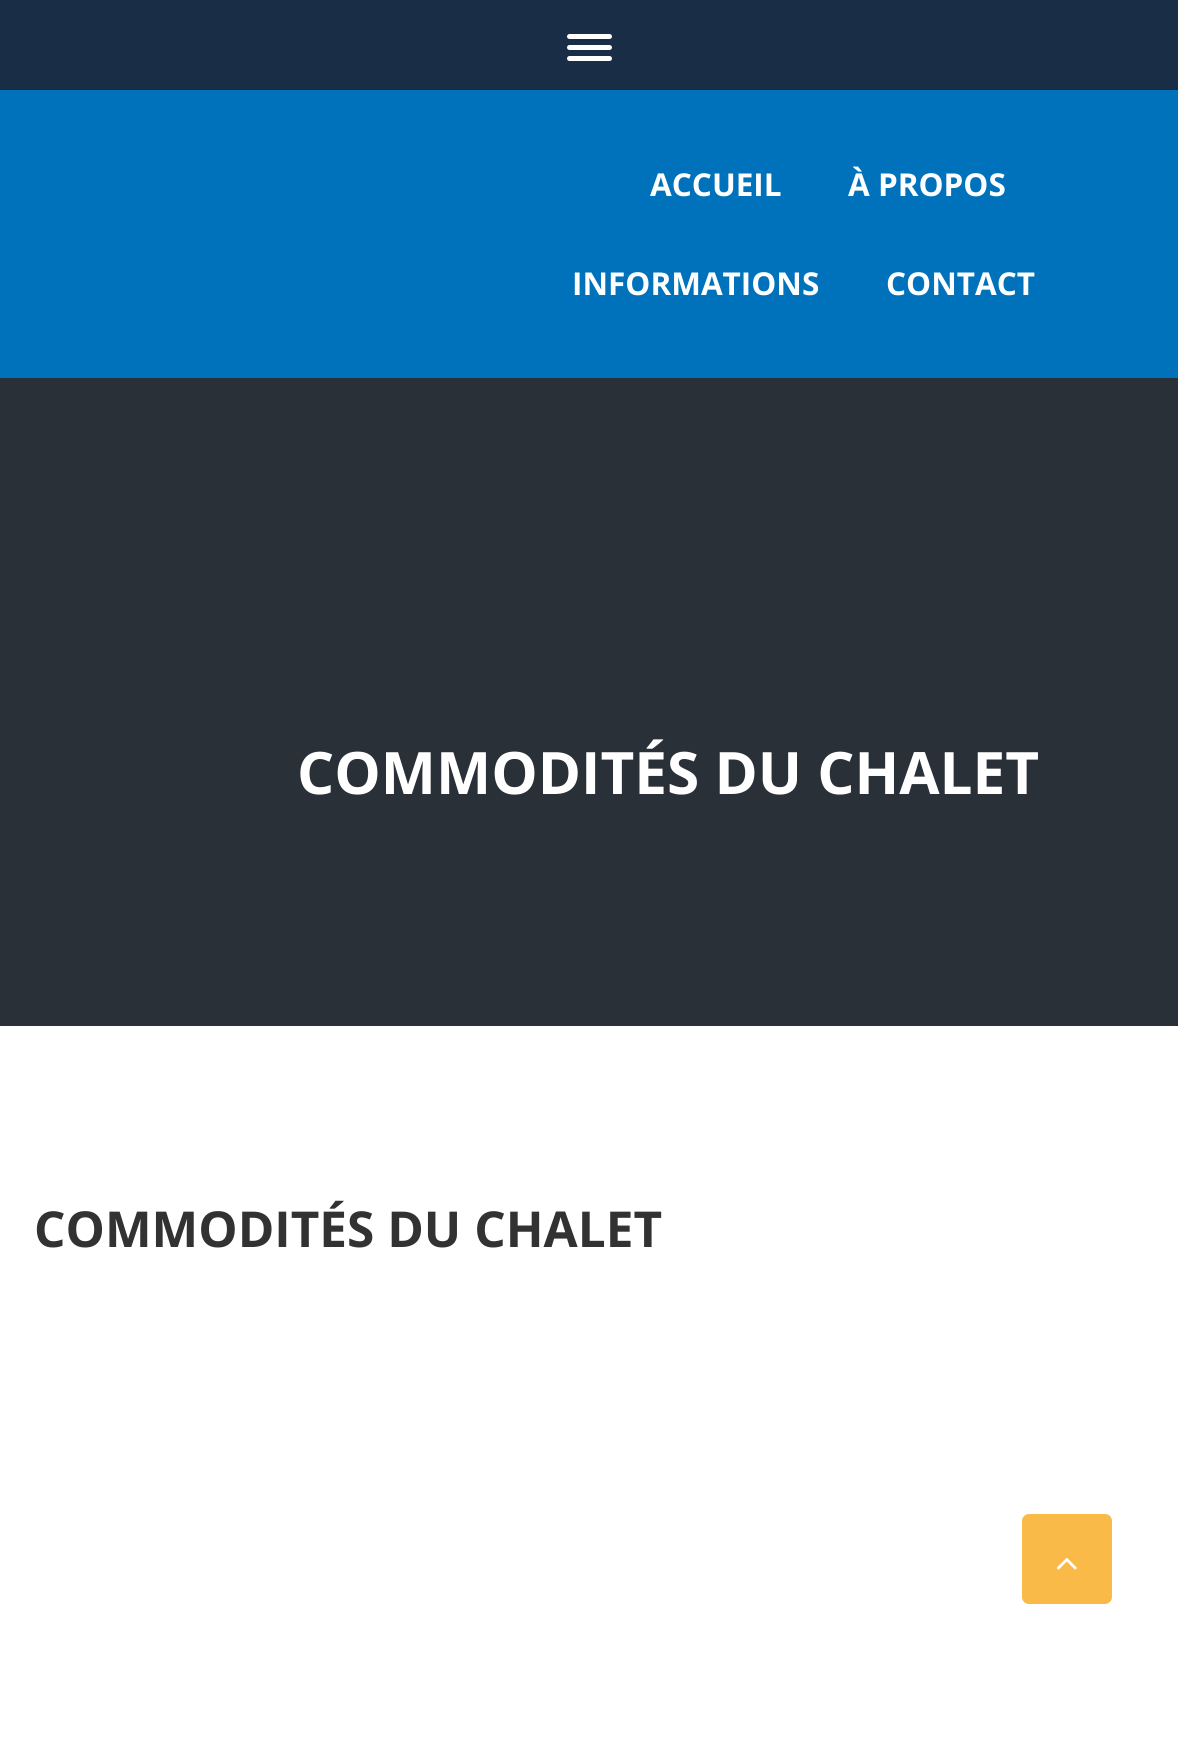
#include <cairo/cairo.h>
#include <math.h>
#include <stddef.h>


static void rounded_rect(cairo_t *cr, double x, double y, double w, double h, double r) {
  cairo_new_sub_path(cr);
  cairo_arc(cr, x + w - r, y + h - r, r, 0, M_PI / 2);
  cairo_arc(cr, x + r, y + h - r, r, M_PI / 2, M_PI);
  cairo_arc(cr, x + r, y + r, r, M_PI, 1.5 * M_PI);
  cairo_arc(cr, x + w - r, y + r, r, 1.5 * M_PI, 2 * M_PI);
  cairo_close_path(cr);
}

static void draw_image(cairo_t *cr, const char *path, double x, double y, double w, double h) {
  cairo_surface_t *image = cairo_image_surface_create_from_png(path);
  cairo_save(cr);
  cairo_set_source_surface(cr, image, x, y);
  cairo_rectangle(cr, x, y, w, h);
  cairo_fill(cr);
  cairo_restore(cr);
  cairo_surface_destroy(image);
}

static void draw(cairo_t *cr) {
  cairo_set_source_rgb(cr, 1, 1, 1);
  cairo_paint(cr);
  cairo_set_source_rgb(cr, 25 / 255.0, 46 / 255.0, 70 / 255.0);
  cairo_rectangle(cr, 0, 0, 1178, 90);
  cairo_fill(cr);
  cairo_set_source_rgb(cr, 1, 1, 1);
  rounded_rect(cr, 567, 34, 45, 5, 2.5);
  cairo_fill(cr);
  rounded_rect(cr, 567, 45, 45, 5, 2.5);
  cairo_fill(cr);
  rounded_rect(cr, 567, 56, 45, 5, 2.5);
  cairo_fill(cr);
  cairo_set_source_rgb(cr, 0, 114 / 255.0, 188 / 255.0);
  cairo_rectangle(cr, 0, 90, 1178, 288);
  cairo_fill(cr);
  cairo_set_source_rgb(cr, 42 / 255.0, 48 / 255.0, 55 / 255.0);
  cairo_rectangle(cr, 0, 378, 1178, 648);
  cairo_fill(cr);
  cairo_set_source_rgb(cr, 249 / 255.0, 186 / 255.0, 72 / 255.0);
  rounded_rect(cr, 1022, 1514, 90, 90, 7);
  cairo_fill(cr);
  draw_image(cr, "images/1.png", 1056, 1558, 21, 12);
  cairo_select_font_face(cr, "Open Sans", CAIRO_FONT_SLANT_NORMAL, CAIRO_FONT_WEIGHT_BOLD);
  cairo_set_font_size(cr, 31.5);
  cairo_set_source_rgb(cr, 1, 1, 1);
  cairo_move_to(cr, 650, 196);
  cairo_show_text(cr, "ACCUEIL");
  cairo_move_to(cr, 848, 196);
  cairo_show_text(cr, "À PROPOS");
  cairo_move_to(cr, 572, 295);
  cairo_show_text(cr, "INFORMATIONS");
  cairo_move_to(cr, 886, 295);
  cairo_show_text(cr, "CONTACT");
  cairo_set_font_size(cr, 58.5);
  cairo_move_to(cr, 297, 794);
  cairo_show_text(cr, "COMMODITÉS DU CHALET");
  cairo_set_font_size(cr, 49.5);
  cairo_set_source_rgb(cr, 50 / 255.0, 50 / 255.0, 50 / 255.0);
  cairo_move_to(cr, 34, 1247);
  cairo_show_text(cr, "COMMODITÉS DU CHALET");
}

int main(void) {
  cairo_surface_t *surface = cairo_image_surface_create(CAIRO_FORMAT_RGB24, 1178, 1761);
  cairo_t *cr = cairo_create(surface);
  cairo_font_options_t *options = cairo_font_options_create();
  cairo_font_options_set_hint_metrics(options, CAIRO_HINT_METRICS_OFF);
  cairo_font_options_set_hint_style(options, CAIRO_HINT_STYLE_NONE);
  cairo_set_font_options(cr, options);
  cairo_set_miter_limit(cr, 4);
  draw(cr);
  cairo_surface_write_to_png(surface, "out.png");
  cairo_font_options_destroy(options);
  cairo_destroy(cr);
  cairo_surface_destroy(surface);
  return 0;
}
